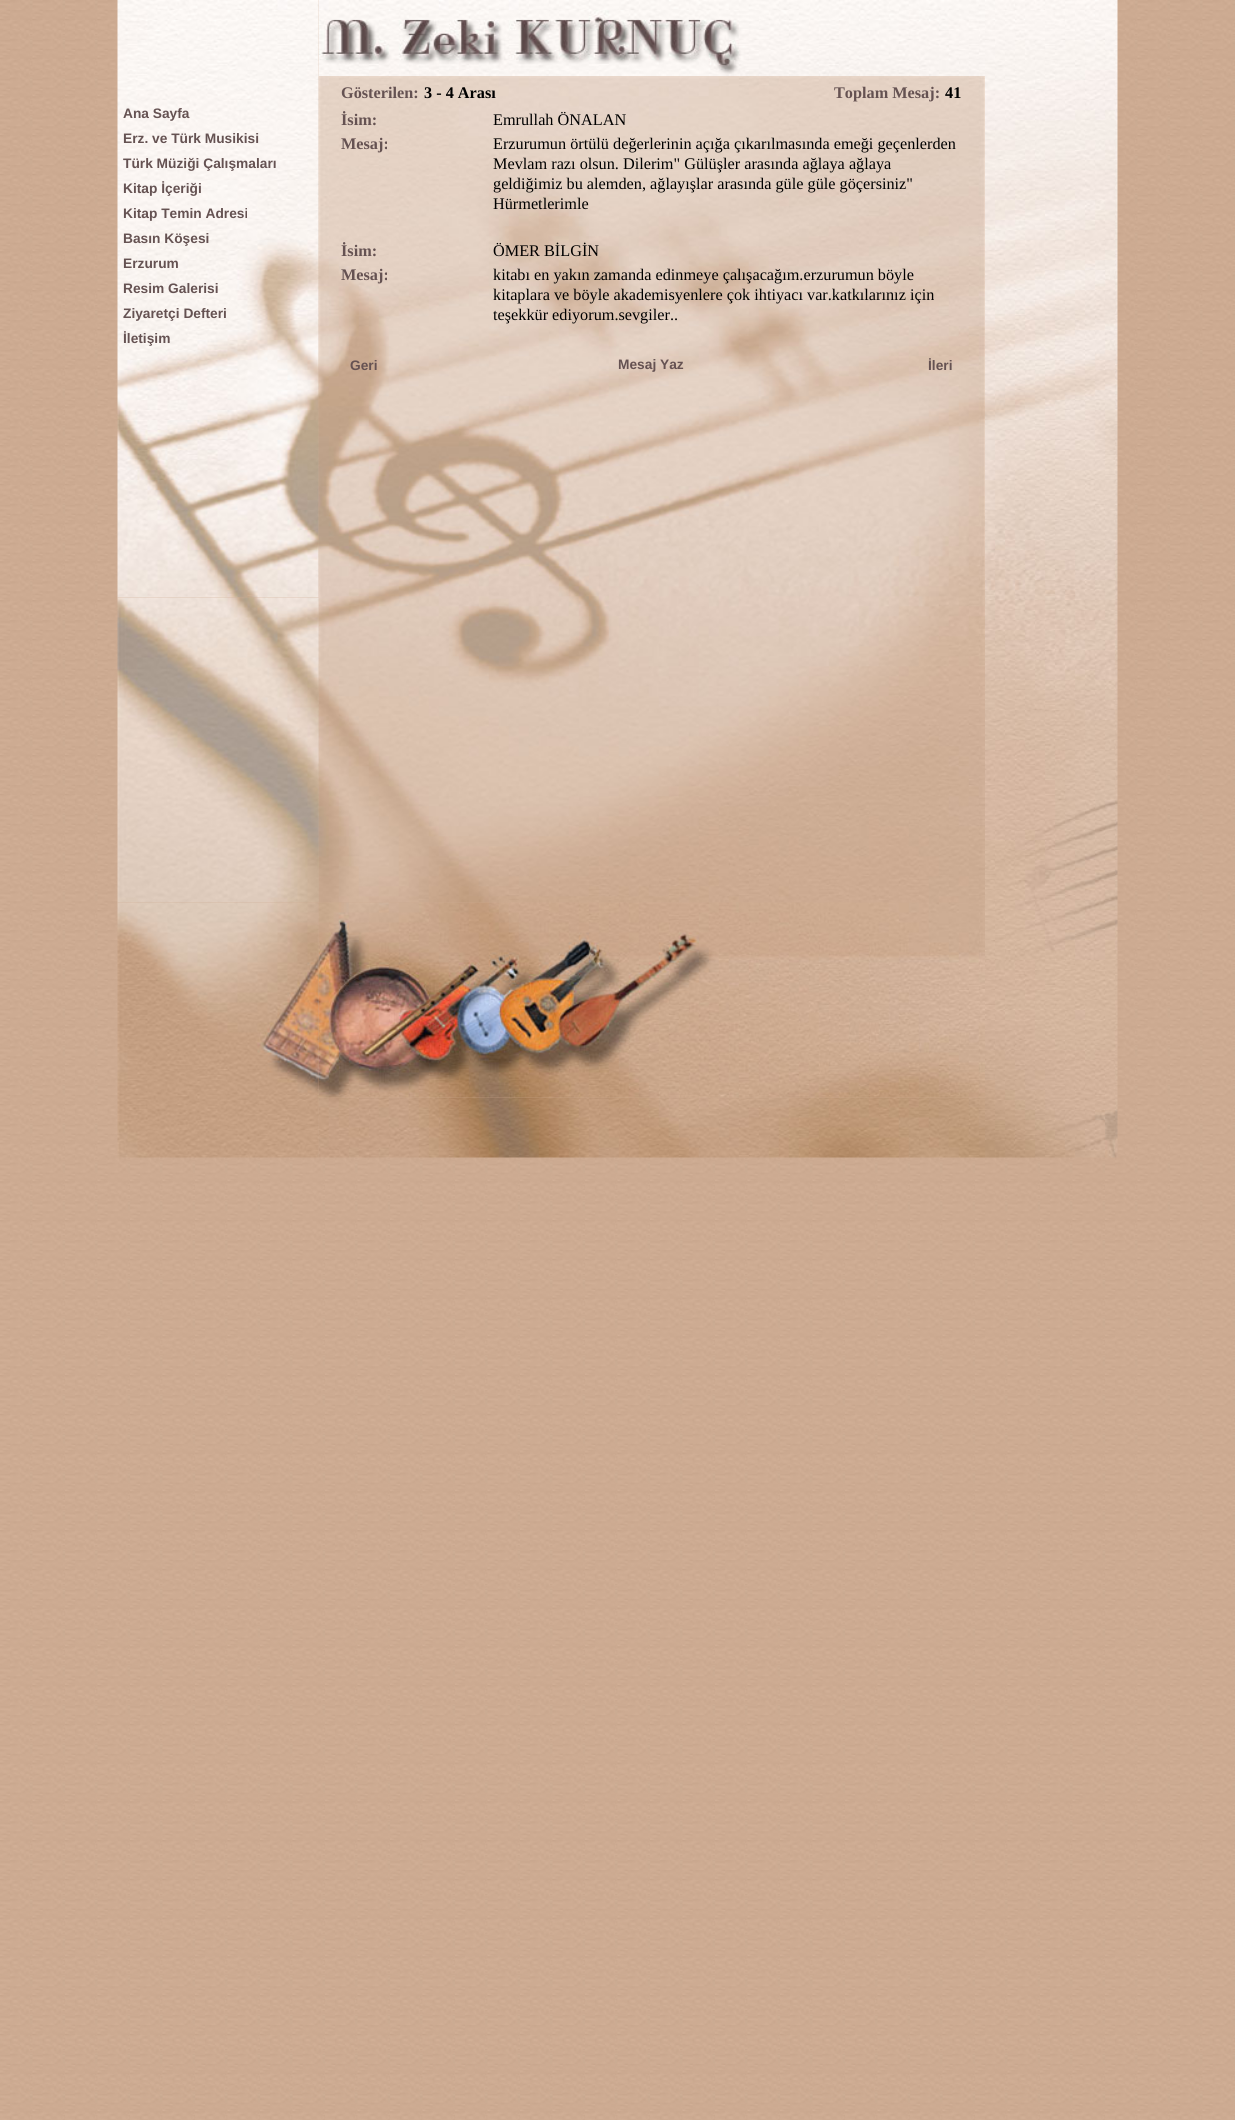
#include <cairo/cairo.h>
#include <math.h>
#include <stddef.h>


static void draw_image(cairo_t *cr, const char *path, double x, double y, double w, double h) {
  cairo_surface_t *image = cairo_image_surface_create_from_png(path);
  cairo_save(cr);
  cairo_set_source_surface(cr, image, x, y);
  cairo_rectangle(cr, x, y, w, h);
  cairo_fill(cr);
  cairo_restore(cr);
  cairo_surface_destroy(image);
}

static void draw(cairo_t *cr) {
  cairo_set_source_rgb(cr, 1, 1, 1);
  cairo_paint(cr);
  draw_image(cr, "images/1.png", 0, 0, 1235, 2120);
  draw_image(cr, "images/2.png", 117, 0, 202, 598);
  draw_image(cr, "images/5.png", 318, 76, 667, 827);
  draw_image(cr, "images/3.png", 318, 0, 667, 77);
  draw_image(cr, "images/4.png", 985, 0, 133, 1158);
  draw_image(cr, "images/6.png", 117, 597, 202, 306);
  draw_image(cr, "images/9.png", 318, 1097, 667, 61);
  draw_image(cr, "images/7.png", 117, 902, 202, 256);
  draw_image(cr, "images/8.png", 318, 902, 667, 196);
  cairo_select_font_face(cr, "Liberation Sans", CAIRO_FONT_SLANT_NORMAL, CAIRO_FONT_WEIGHT_BOLD);
  cairo_set_font_size(cr, 13.75);
  cairo_set_source_rgb(cr, 101 / 255.0, 82 / 255.0, 82 / 255.0);
  cairo_move_to(cr, 123, 118);
  cairo_show_text(cr, "Ana Sayfa");
  cairo_move_to(cr, 123, 143);
  cairo_show_text(cr, "Erz. ve Türk Musikisi");
  cairo_move_to(cr, 123, 168);
  cairo_show_text(cr, "Türk Müziği Çalışmaları");
  cairo_move_to(cr, 123, 193);
  cairo_show_text(cr, "Kitap İçeriği");
  cairo_move_to(cr, 123, 218);
  cairo_show_text(cr, "Kitap Temin Adresi");
  cairo_move_to(cr, 123, 243);
  cairo_show_text(cr, "Basın Köşesi");
  cairo_move_to(cr, 123, 268);
  cairo_show_text(cr, "Erzurum");
  cairo_move_to(cr, 123, 293);
  cairo_show_text(cr, "Resim Galerisi");
  cairo_move_to(cr, 123, 318);
  cairo_show_text(cr, "Ziyaretçi Defteri");
  cairo_move_to(cr, 123, 343);
  cairo_show_text(cr, "İletişim");
  cairo_select_font_face(cr, "Liberation Serif", CAIRO_FONT_SLANT_NORMAL, CAIRO_FONT_WEIGHT_BOLD);
  cairo_set_font_size(cr, 16.25);
  cairo_move_to(cr, 341, 98);
  cairo_show_text(cr, "Gösterilen:");
  cairo_set_source_rgb(cr, 0, 0, 0);
  cairo_move_to(cr, 424, 98);
  cairo_show_text(cr, "3 - 4 Arası");
  cairo_set_source_rgb(cr, 101 / 255.0, 82 / 255.0, 82 / 255.0);
  cairo_move_to(cr, 834, 98);
  cairo_show_text(cr, "Toplam Mesaj:");
  cairo_set_source_rgb(cr, 0, 0, 0);
  cairo_move_to(cr, 945, 98);
  cairo_show_text(cr, "41");
  cairo_set_source_rgb(cr, 101 / 255.0, 82 / 255.0, 82 / 255.0);
  cairo_move_to(cr, 341, 125);
  cairo_show_text(cr, "İsim:");
  cairo_select_font_face(cr, "Liberation Serif", CAIRO_FONT_SLANT_NORMAL, CAIRO_FONT_WEIGHT_NORMAL);
  cairo_set_source_rgb(cr, 0, 0, 0);
  cairo_move_to(cr, 493, 125);
  cairo_show_text(cr, "Emrullah ÖNALAN");
  cairo_select_font_face(cr, "Liberation Serif", CAIRO_FONT_SLANT_NORMAL, CAIRO_FONT_WEIGHT_BOLD);
  cairo_set_source_rgb(cr, 101 / 255.0, 82 / 255.0, 82 / 255.0);
  cairo_move_to(cr, 341, 149);
  cairo_show_text(cr, "Mesaj:");
  cairo_select_font_face(cr, "Liberation Serif", CAIRO_FONT_SLANT_NORMAL, CAIRO_FONT_WEIGHT_NORMAL);
  cairo_set_source_rgb(cr, 0, 0, 0);
  cairo_move_to(cr, 493, 149);
  cairo_show_text(cr, "Erzurumun örtülü değerlerinin açığa çıkarılmasında emeği geçenlerden");
  cairo_move_to(cr, 493, 169);
  cairo_show_text(cr, "Mevlam razı olsun. Dilerim\" Gülüşler arasında ağlaya ağlaya");
  cairo_move_to(cr, 493, 189);
  cairo_show_text(cr, "geldiğimiz bu alemden, ağlayışlar arasında güle güle göçersiniz\"");
  cairo_move_to(cr, 493, 209);
  cairo_show_text(cr, "Hürmetlerimle");
  cairo_select_font_face(cr, "Liberation Serif", CAIRO_FONT_SLANT_NORMAL, CAIRO_FONT_WEIGHT_BOLD);
  cairo_set_source_rgb(cr, 101 / 255.0, 82 / 255.0, 82 / 255.0);
  cairo_move_to(cr, 341, 256);
  cairo_show_text(cr, "İsim:");
  cairo_select_font_face(cr, "Liberation Serif", CAIRO_FONT_SLANT_NORMAL, CAIRO_FONT_WEIGHT_NORMAL);
  cairo_set_source_rgb(cr, 0, 0, 0);
  cairo_move_to(cr, 493, 256);
  cairo_show_text(cr, "ÖMER BİLGİN");
  cairo_select_font_face(cr, "Liberation Serif", CAIRO_FONT_SLANT_NORMAL, CAIRO_FONT_WEIGHT_BOLD);
  cairo_set_source_rgb(cr, 101 / 255.0, 82 / 255.0, 82 / 255.0);
  cairo_move_to(cr, 341, 280);
  cairo_show_text(cr, "Mesaj:");
  cairo_select_font_face(cr, "Liberation Serif", CAIRO_FONT_SLANT_NORMAL, CAIRO_FONT_WEIGHT_NORMAL);
  cairo_set_source_rgb(cr, 0, 0, 0);
  cairo_move_to(cr, 493, 280);
  cairo_show_text(cr, "kitabı en yakın zamanda edinmeye çalışacağım.erzurumun böyle");
  cairo_move_to(cr, 493, 300);
  cairo_show_text(cr, "kitaplara ve böyle akademisyenlere çok ihtiyacı var.katkılarınız için");
  cairo_move_to(cr, 493, 320);
  cairo_show_text(cr, "teşekkür ediyorum.sevgiler..");
  cairo_select_font_face(cr, "Liberation Sans", CAIRO_FONT_SLANT_NORMAL, CAIRO_FONT_WEIGHT_BOLD);
  cairo_set_font_size(cr, 13.75);
  cairo_set_source_rgb(cr, 101 / 255.0, 82 / 255.0, 82 / 255.0);
  cairo_move_to(cr, 350, 370);
  cairo_show_text(cr, "Geri");
  cairo_move_to(cr, 618, 369);
  cairo_show_text(cr, "Mesaj Yaz");
  cairo_move_to(cr, 928, 370);
  cairo_show_text(cr, "İleri");
}

int main(void) {
  cairo_surface_t *surface = cairo_image_surface_create(CAIRO_FORMAT_RGB24, 1235, 2120);
  cairo_t *cr = cairo_create(surface);
  cairo_font_options_t *options = cairo_font_options_create();
  cairo_font_options_set_hint_metrics(options, CAIRO_HINT_METRICS_OFF);
  cairo_font_options_set_hint_style(options, CAIRO_HINT_STYLE_NONE);
  cairo_set_font_options(cr, options);
  cairo_set_miter_limit(cr, 4);
  draw(cr);
  cairo_surface_write_to_png(surface, "out.png");
  cairo_font_options_destroy(options);
  cairo_destroy(cr);
  cairo_surface_destroy(surface);
  return 0;
}
